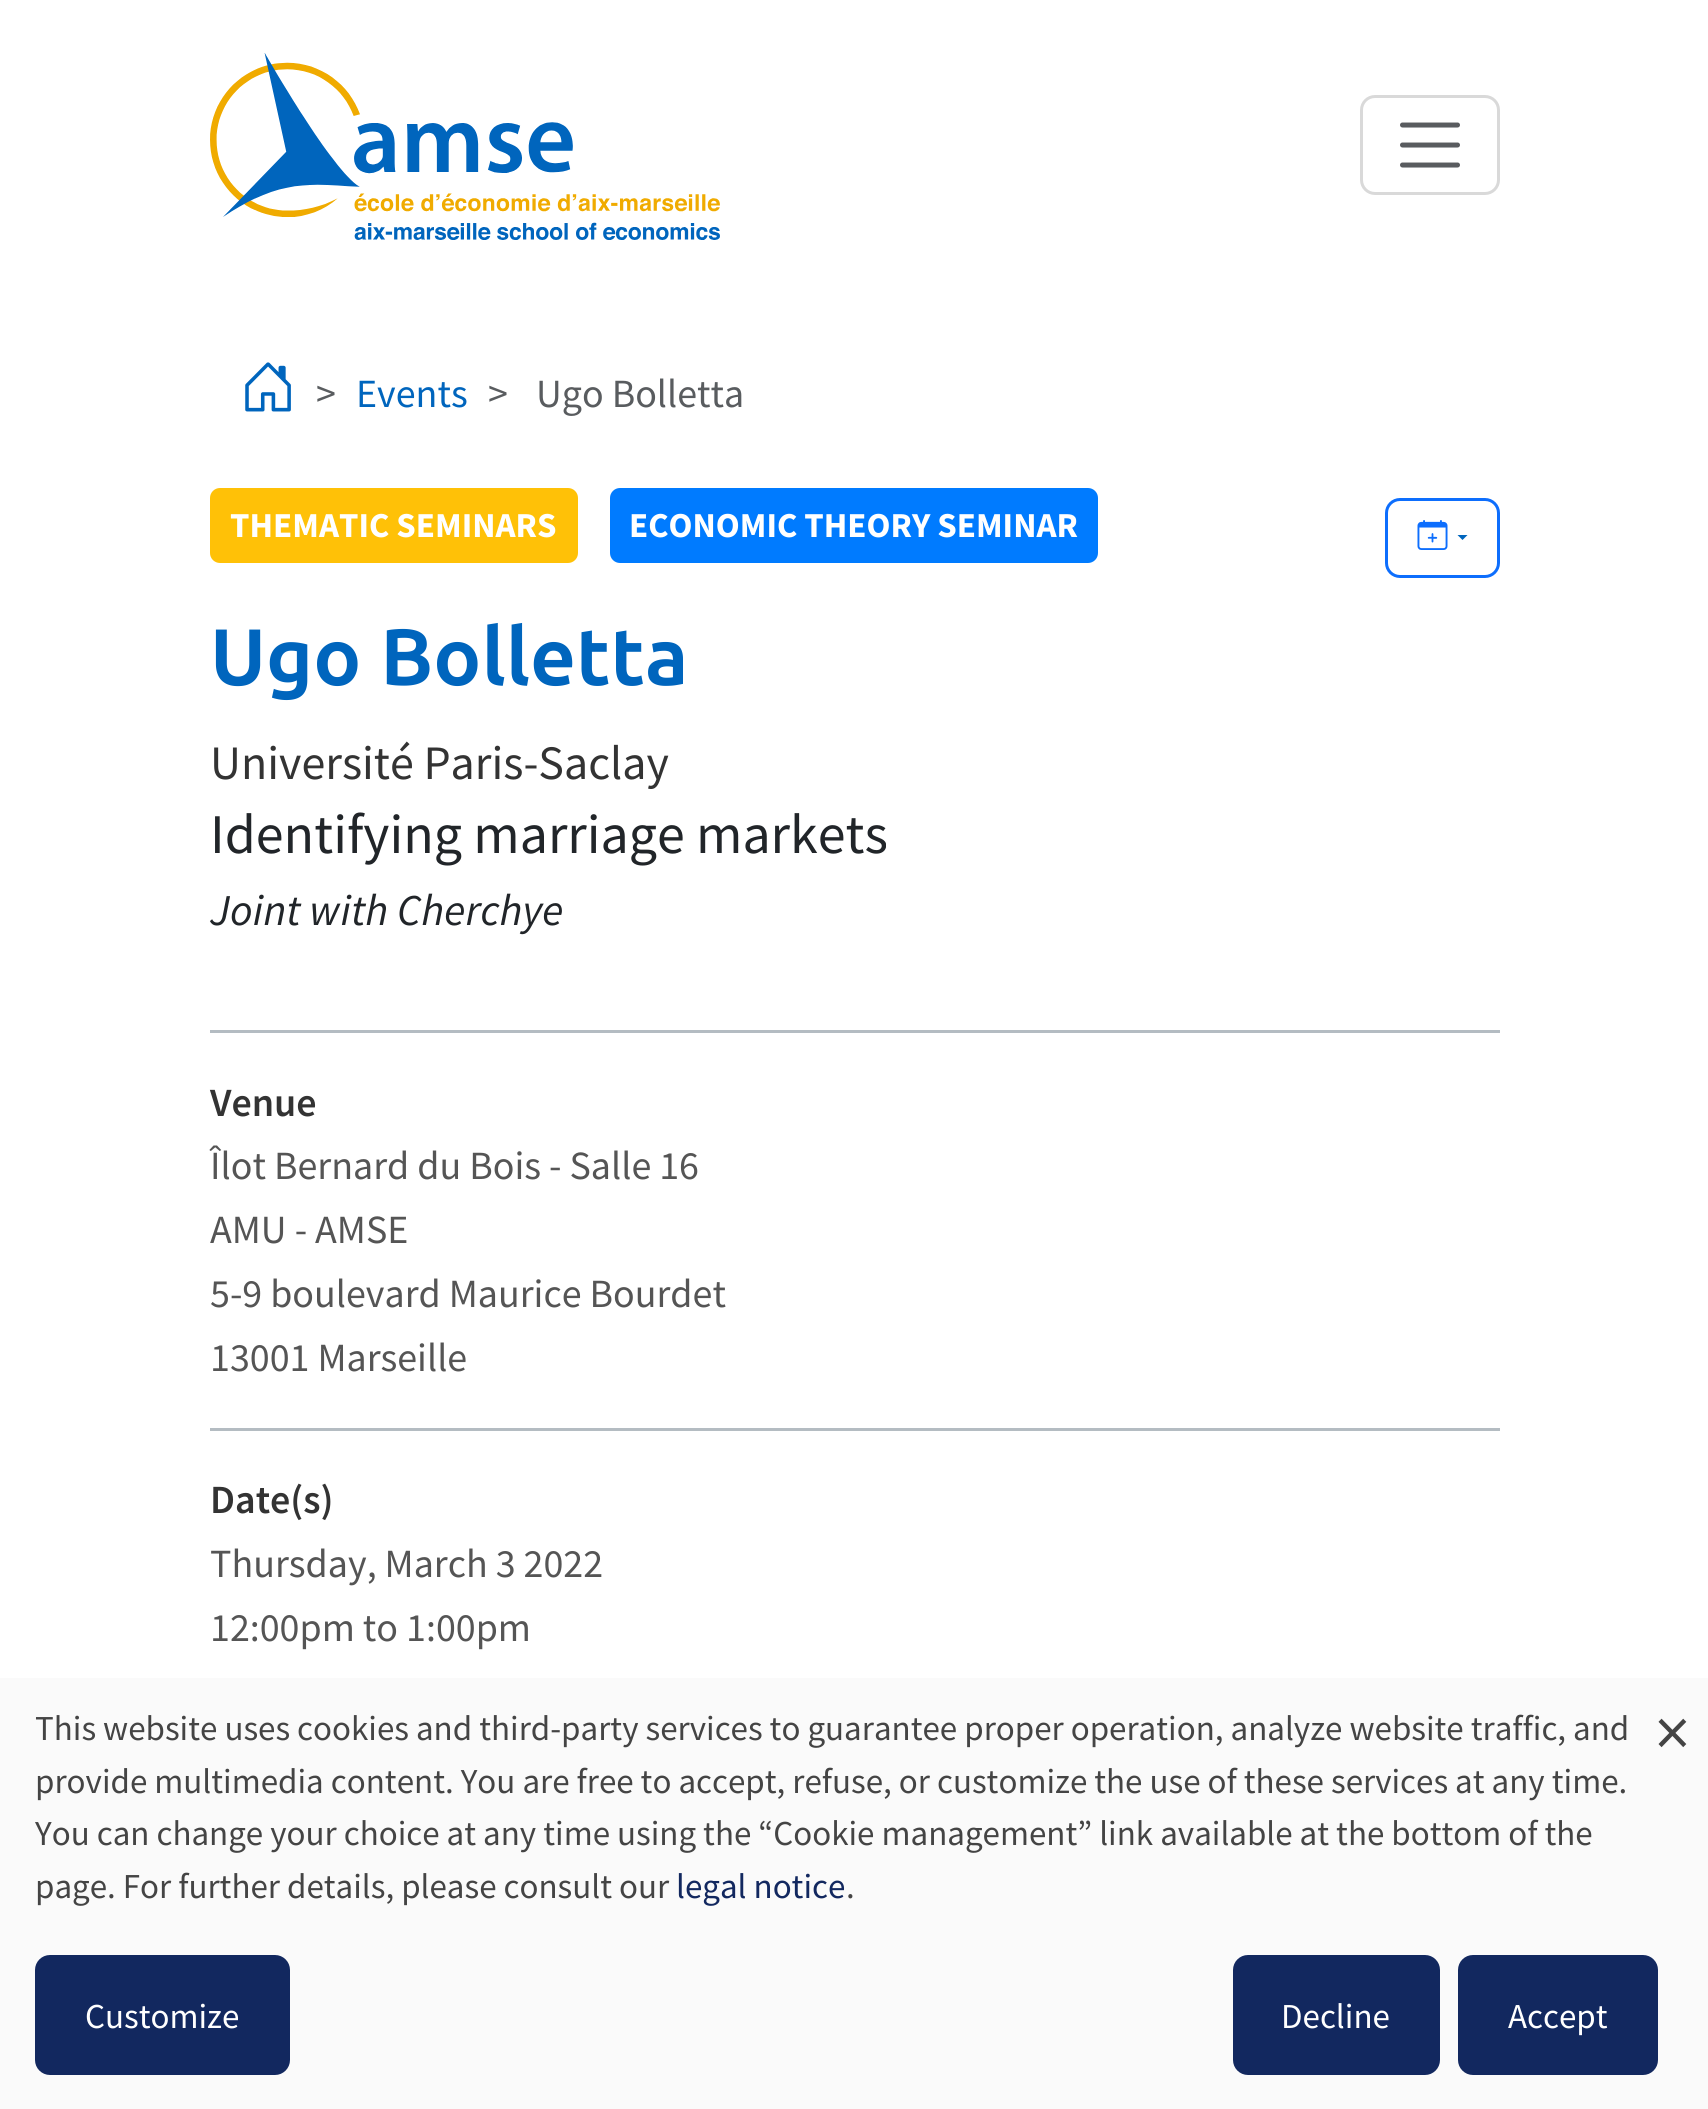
#include <cairo/cairo.h>
#include <math.h>
#include <stddef.h>


static void rounded_rect(cairo_t *cr, double x, double y, double w, double h, double r) {
  cairo_new_sub_path(cr);
  cairo_arc(cr, x + w - r, y + h - r, r, 0, M_PI / 2);
  cairo_arc(cr, x + r, y + h - r, r, M_PI / 2, M_PI);
  cairo_arc(cr, x + r, y + r, r, M_PI, 1.5 * M_PI);
  cairo_arc(cr, x + w - r, y + r, r, 1.5 * M_PI, 2 * M_PI);
  cairo_close_path(cr);
}

static void draw_image(cairo_t *cr, const char *path, double x, double y, double w, double h) {
  cairo_surface_t *image = cairo_image_surface_create_from_png(path);
  cairo_save(cr);
  cairo_set_source_surface(cr, image, x, y);
  cairo_rectangle(cr, x, y, w, h);
  cairo_fill(cr);
  cairo_restore(cr);
  cairo_surface_destroy(image);
}

static void draw(cairo_t *cr) {
  cairo_set_source_rgb(cr, 1, 1, 1);
  cairo_paint(cr);
  draw_image(cr, "images/1.png", 210, 53, 510, 187);
  rounded_rect(cr, 1361.5, 96.5, 137, 97, 13.5);
  cairo_set_source_rgb(cr, 217 / 255.0, 217 / 255.0, 217 / 255.0);
  cairo_set_line_width(cr, 3);
  cairo_stroke(cr);
  cairo_new_path(cr);
  cairo_move_to(cr, 1402.5, 125);
  cairo_line_to(cr, 1457.5, 125);
  cairo_move_to(cr, 1402.5, 145);
  cairo_line_to(cr, 1457.5, 145);
  cairo_move_to(cr, 1402.5, 165);
  cairo_line_to(cr, 1457.5, 165);
  cairo_set_source_rgb(cr, 89 / 255.0, 92 / 255.0, 95 / 255.0);
  cairo_set_line_width(cr, 5);
  cairo_set_line_cap(cr, CAIRO_LINE_CAP_ROUND);
  cairo_stroke(cr);
  draw_image(cr, "images/2.png", 245, 362, 46, 50);
  cairo_set_source_rgb(cr, 1, 193 / 255.0, 7 / 255.0);
  rounded_rect(cr, 210, 488, 368, 75, 10);
  cairo_fill(cr);
  cairo_set_source_rgb(cr, 0, 123 / 255.0, 1);
  rounded_rect(cr, 610, 488, 488, 75, 10);
  cairo_fill(cr);
  rounded_rect(cr, 1386.5, 499.5, 112, 77, 13.5);
  cairo_set_source_rgb(cr, 13 / 255.0, 110 / 255.0, 253 / 255.0);
  cairo_set_line_width(cr, 3);
  cairo_set_line_cap(cr, CAIRO_LINE_CAP_BUTT);
  cairo_stroke(cr);
  draw_image(cr, "images/3.png", 1417, 520, 31, 30);
  cairo_set_source_rgb(cr, 0, 101 / 255.0, 189 / 255.0);
  cairo_new_path(cr);
  cairo_move_to(cr, 1457.5, 535);
  cairo_line_to(cr, 1467.5, 535);
  cairo_line_to(cr, 1462.5, 540);
  cairo_close_path(cr);
  cairo_fill(cr);
  cairo_set_source_rgb(cr, 180 / 255.0, 188 / 255.0, 194 / 255.0);
  cairo_rectangle(cr, 210, 1030, 1290, 3);
  cairo_fill(cr);
  cairo_rectangle(cr, 210, 1428, 1290, 3);
  cairo_fill(cr);
  cairo_set_source_rgb(cr, 250 / 255.0, 250 / 255.0, 250 / 255.0);
  cairo_rectangle(cr, 0, 1678, 1708, 431);
  cairo_fill(cr);
  cairo_set_source_rgb(cr, 18 / 255.0, 40 / 255.0, 95 / 255.0);
  rounded_rect(cr, 39, 1959, 247, 112, 11);
  cairo_fill_preserve(cr);
  cairo_set_line_width(cr, 8);
  cairo_stroke(cr);
  rounded_rect(cr, 1237, 1959, 199, 112, 11);
  cairo_fill_preserve(cr);
  cairo_stroke(cr);
  rounded_rect(cr, 1462, 1959, 192, 112, 11);
  cairo_fill_preserve(cr);
  cairo_stroke(cr);
  cairo_select_font_face(cr, "Source Sans Pro", CAIRO_FONT_SLANT_NORMAL, CAIRO_FONT_WEIGHT_NORMAL);
  cairo_set_font_size(cr, 40);
  cairo_set_source_rgb(cr, 89 / 255.0, 92 / 255.0, 95 / 255.0);
  cairo_move_to(cr, 316, 407);
  cairo_show_text(cr, ">");
  cairo_set_source_rgb(cr, 0, 101 / 255.0, 189 / 255.0);
  cairo_move_to(cr, 356, 407);
  cairo_show_text(cr, "Events");
  cairo_set_source_rgb(cr, 89 / 255.0, 92 / 255.0, 95 / 255.0);
  cairo_move_to(cr, 488, 407);
  cairo_show_text(cr, ">");
  cairo_move_to(cr, 536, 407);
  cairo_show_text(cr, "Ugo Bolletta");
  cairo_select_font_face(cr, "Source Sans Pro", CAIRO_FONT_SLANT_NORMAL, CAIRO_FONT_WEIGHT_BOLD);
  cairo_set_font_size(cr, 35);
  cairo_set_source_rgb(cr, 1, 1, 1);
  cairo_move_to(cr, 230, 537);
  cairo_show_text(cr, "THEMATIC SEMINARS");
  cairo_move_to(cr, 629, 537);
  cairo_show_text(cr, "ECONOMIC THEORY SEMINAR");
  cairo_select_font_face(cr, "Ubuntu", CAIRO_FONT_SLANT_NORMAL, CAIRO_FONT_WEIGHT_BOLD);
  cairo_set_font_size(cr, 80);
  cairo_set_source_rgb(cr, 0, 101 / 255.0, 189 / 255.0);
  cairo_move_to(cr, 210, 685);
  cairo_show_text(cr, "Ugo Bolletta");
  cairo_select_font_face(cr, "Source Sans Pro", CAIRO_FONT_SLANT_NORMAL, CAIRO_FONT_WEIGHT_NORMAL);
  cairo_set_font_size(cr, 48);
  cairo_set_source_rgb(cr, 51 / 255.0, 51 / 255.0, 51 / 255.0);
  cairo_move_to(cr, 210, 779);
  cairo_show_text(cr, "Université Paris-Saclay");
  cairo_set_font_size(cr, 56);
  cairo_set_source_rgb(cr, 33 / 255.0, 37 / 255.0, 41 / 255.0);
  cairo_move_to(cr, 210, 853);
  cairo_show_text(cr, "Identifying marriage markets");
  cairo_select_font_face(cr, "Source Sans Pro", CAIRO_FONT_SLANT_ITALIC, CAIRO_FONT_WEIGHT_NORMAL);
  cairo_set_font_size(cr, 44);
  cairo_move_to(cr, 210, 925);
  cairo_show_text(cr, "Joint with Cherchye");
  cairo_select_font_face(cr, "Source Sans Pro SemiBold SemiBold", CAIRO_FONT_SLANT_NORMAL, CAIRO_FONT_WEIGHT_NORMAL);
  cairo_set_font_size(cr, 40);
  cairo_set_source_rgb(cr, 51 / 255.0, 51 / 255.0, 51 / 255.0);
  cairo_move_to(cr, 210, 1116);
  cairo_show_text(cr, "Venue");
  cairo_select_font_face(cr, "Source Sans Pro", CAIRO_FONT_SLANT_NORMAL, CAIRO_FONT_WEIGHT_NORMAL);
  cairo_set_source_rgb(cr, 85 / 255.0, 85 / 255.0, 85 / 255.0);
  cairo_move_to(cr, 210, 1179);
  cairo_show_text(cr, "Îlot Bernard du Bois - Salle 16");
  cairo_move_to(cr, 210, 1243);
  cairo_show_text(cr, "AMU - AMSE");
  cairo_move_to(cr, 210, 1307);
  cairo_show_text(cr, "5-9 boulevard Maurice Bourdet");
  cairo_move_to(cr, 210, 1371);
  cairo_show_text(cr, "13001 Marseille");
  cairo_select_font_face(cr, "Source Sans Pro SemiBold SemiBold", CAIRO_FONT_SLANT_NORMAL, CAIRO_FONT_WEIGHT_NORMAL);
  cairo_set_source_rgb(cr, 51 / 255.0, 51 / 255.0, 51 / 255.0);
  cairo_move_to(cr, 210, 1513);
  cairo_show_text(cr, "Date(s)");
  cairo_select_font_face(cr, "Source Sans Pro", CAIRO_FONT_SLANT_NORMAL, CAIRO_FONT_WEIGHT_NORMAL);
  cairo_set_source_rgb(cr, 85 / 255.0, 85 / 255.0, 85 / 255.0);
  cairo_move_to(cr, 210, 1577);
  cairo_show_text(cr, "Thursday, March 3 2022");
  cairo_move_to(cr, 210, 1641);
  cairo_show_text(cr, "12:00pm to 1:00pm");
  cairo_set_font_size(cr, 35);
  cairo_set_source_rgb(cr, 68 / 255.0, 68 / 255.0, 68 / 255.0);
  cairo_move_to(cr, 35, 1740);
  cairo_show_text(cr, "This website uses cookies and third-party services to guarantee proper operation, analyze website traffic, and");
  cairo_move_to(cr, 35, 1793);
  cairo_show_text(cr, "provide multimedia content. You are free to accept, refuse, or customize the use of these services at any time.");
  cairo_move_to(cr, 35, 1845);
  cairo_show_text(cr, "You can change your choice at any time using the “Cookie management” link available at the bottom of the");
  cairo_move_to(cr, 35, 1898);
  cairo_show_text(cr, "page. For further details, please consult our");
  cairo_set_source_rgb(cr, 18 / 255.0, 40 / 255.0, 95 / 255.0);
  cairo_move_to(cr, 676, 1898);
  cairo_show_text(cr, "legal notice");
  cairo_set_source_rgb(cr, 68 / 255.0, 68 / 255.0, 68 / 255.0);
  cairo_move_to(cr, 846, 1898);
  cairo_show_text(cr, ".");
  cairo_set_source_rgb(cr, 1, 1, 1);
  cairo_move_to(cr, 85, 2028);
  cairo_show_text(cr, "Customize");
  cairo_move_to(cr, 1281, 2028);
  cairo_show_text(cr, "Decline");
  cairo_move_to(cr, 1508, 2028);
  cairo_show_text(cr, "Accept");
  cairo_set_font_size(cr, 70);
  cairo_set_source_rgb(cr, 68 / 255.0, 68 / 255.0, 68 / 255.0);
  cairo_move_to(cr, 1655, 1756);
  cairo_show_text(cr, "×");
}

int main(void) {
  cairo_surface_t *surface = cairo_image_surface_create(CAIRO_FORMAT_RGB24, 1708, 2109);
  cairo_t *cr = cairo_create(surface);
  cairo_font_options_t *options = cairo_font_options_create();
  cairo_font_options_set_hint_metrics(options, CAIRO_HINT_METRICS_OFF);
  cairo_font_options_set_hint_style(options, CAIRO_HINT_STYLE_NONE);
  cairo_set_font_options(cr, options);
  cairo_set_miter_limit(cr, 4);
  draw(cr);
  cairo_surface_write_to_png(surface, "out.png");
  cairo_font_options_destroy(options);
  cairo_destroy(cr);
  cairo_surface_destroy(surface);
  return 0;
}
